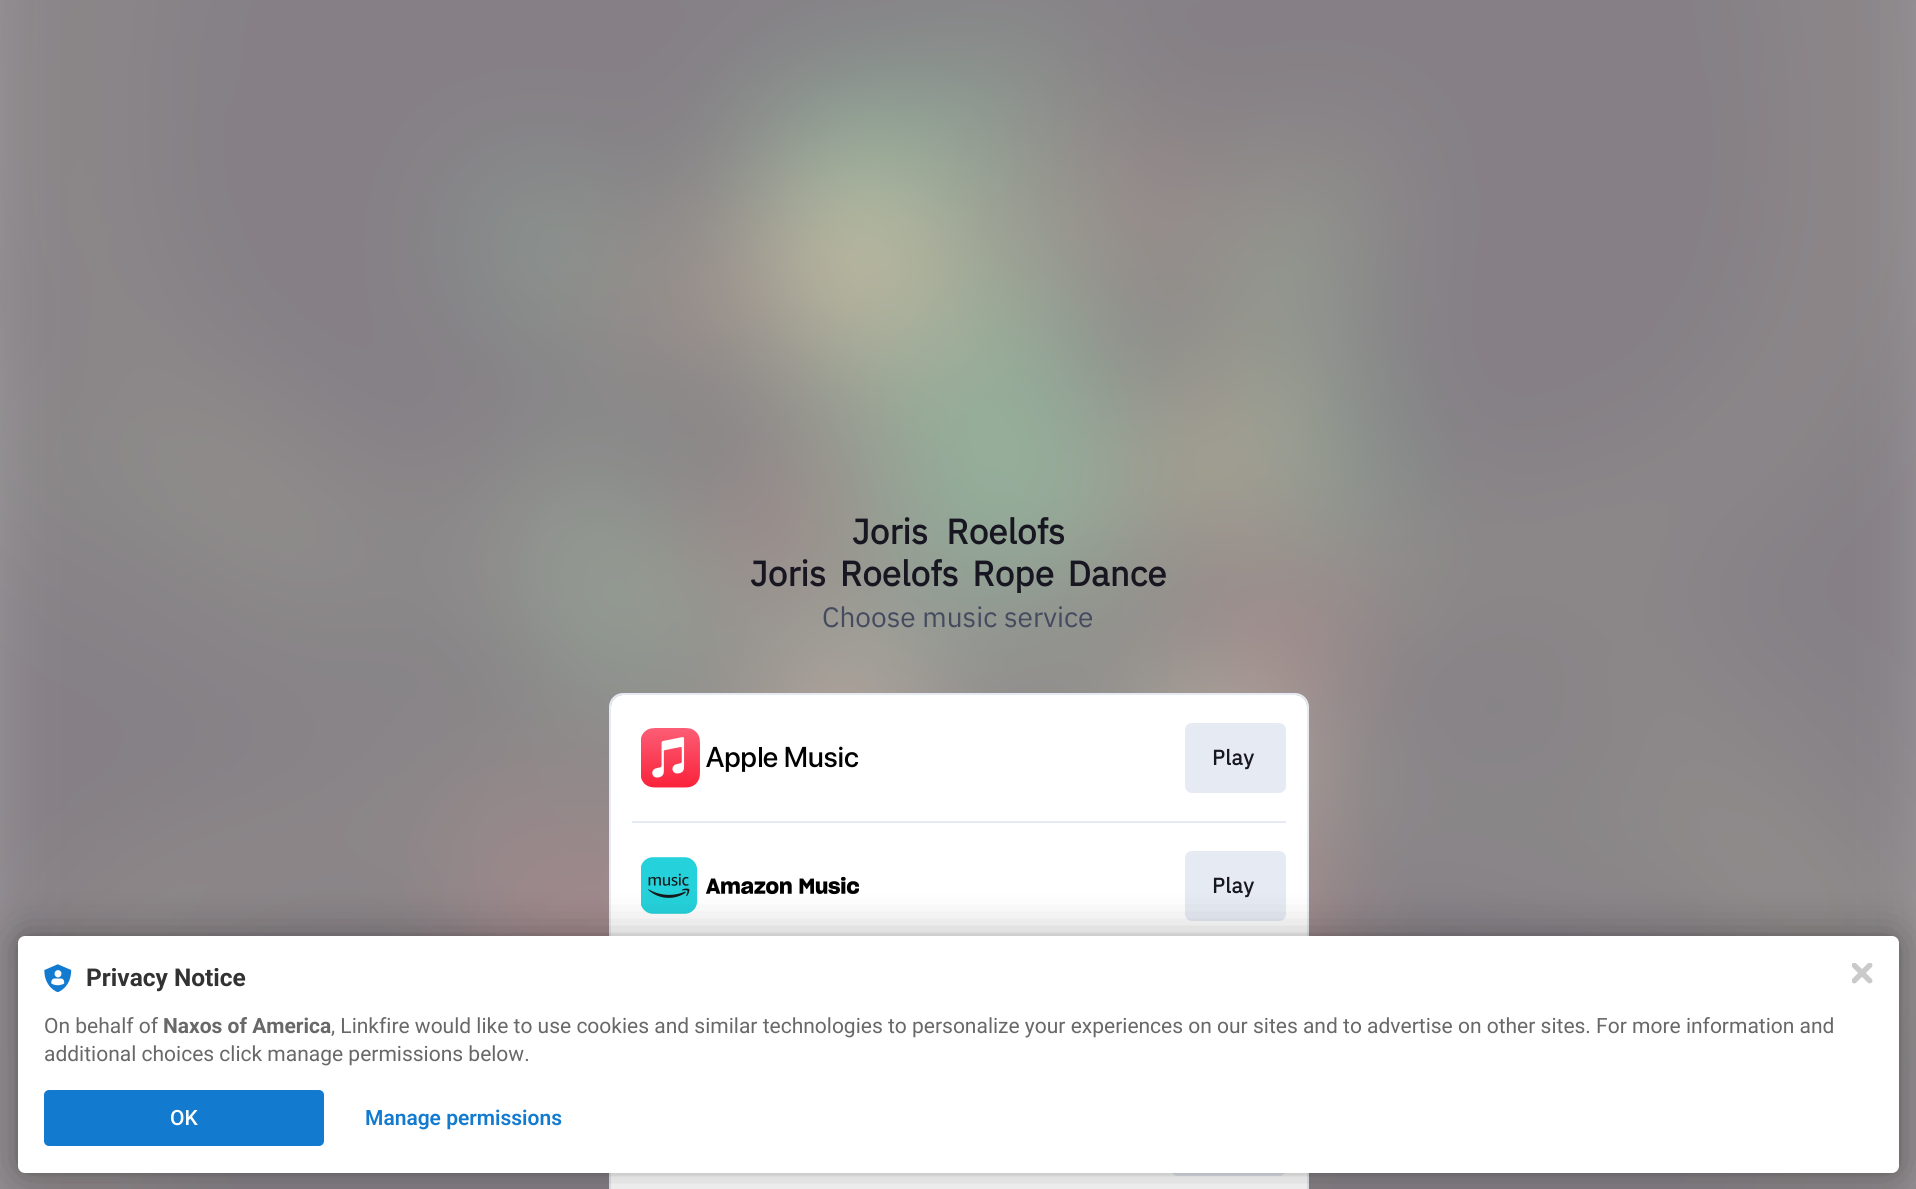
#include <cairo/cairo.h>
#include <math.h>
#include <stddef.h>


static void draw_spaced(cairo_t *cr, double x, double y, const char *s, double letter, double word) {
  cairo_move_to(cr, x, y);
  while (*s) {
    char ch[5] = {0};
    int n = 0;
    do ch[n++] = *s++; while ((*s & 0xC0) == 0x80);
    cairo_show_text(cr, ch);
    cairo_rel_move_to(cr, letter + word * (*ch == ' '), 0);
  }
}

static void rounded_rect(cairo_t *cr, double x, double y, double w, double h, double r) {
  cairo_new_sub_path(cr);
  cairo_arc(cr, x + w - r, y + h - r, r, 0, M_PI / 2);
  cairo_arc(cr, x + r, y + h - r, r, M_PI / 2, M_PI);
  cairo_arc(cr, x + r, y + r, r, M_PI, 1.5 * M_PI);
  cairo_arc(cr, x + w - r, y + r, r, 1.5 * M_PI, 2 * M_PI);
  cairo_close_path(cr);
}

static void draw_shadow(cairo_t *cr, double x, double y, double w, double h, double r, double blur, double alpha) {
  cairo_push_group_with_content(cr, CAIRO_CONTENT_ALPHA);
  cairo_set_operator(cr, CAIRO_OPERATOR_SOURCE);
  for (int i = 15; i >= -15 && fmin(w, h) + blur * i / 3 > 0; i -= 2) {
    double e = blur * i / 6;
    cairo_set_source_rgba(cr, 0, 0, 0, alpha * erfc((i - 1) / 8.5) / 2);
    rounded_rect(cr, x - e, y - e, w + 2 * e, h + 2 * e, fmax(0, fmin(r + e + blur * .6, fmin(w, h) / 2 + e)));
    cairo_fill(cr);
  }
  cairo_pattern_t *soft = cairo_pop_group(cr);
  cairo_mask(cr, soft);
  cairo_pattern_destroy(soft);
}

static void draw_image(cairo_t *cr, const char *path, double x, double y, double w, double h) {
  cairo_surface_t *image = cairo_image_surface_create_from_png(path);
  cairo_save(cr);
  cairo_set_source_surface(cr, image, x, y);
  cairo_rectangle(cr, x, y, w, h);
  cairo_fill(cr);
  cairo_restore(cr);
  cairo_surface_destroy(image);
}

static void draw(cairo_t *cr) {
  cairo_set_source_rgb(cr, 1, 1, 1);
  cairo_paint(cr);
  draw_image(cr, "images/1.png", 0, 0, 1916, 1189);
  rounded_rect(cr, 610, 694, 698, 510, 13);
  cairo_set_source_rgb(cr, 230 / 255.0, 234 / 255.0, 242 / 255.0);
  cairo_stroke(cr);
  cairo_set_source_rgb(cr, 1, 1, 1);
  rounded_rect(cr, 611, 695, 696, 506, 12);
  cairo_fill(cr);
  draw_image(cr, "images/2.png", 641, 728, 218, 60);
  cairo_set_source_rgb(cr, 230 / 255.0, 234 / 255.0, 242 / 255.0);
  rounded_rect(cr, 1185, 723, 101, 70, 7);
  cairo_fill(cr);
  cairo_rectangle(cr, 632, 821, 654, 2);
  cairo_fill(cr);
  draw_image(cr, "images/3.png", 641, 857, 218, 57);
  rounded_rect(cr, 1185, 851, 101, 70, 7);
  cairo_fill(cr);
  rounded_rect(cr, 1171, 1106, 115, 70, 7);
  cairo_fill(cr);
  cairo_set_source_rgb(cr, 0, 0, 0);
  draw_shadow(cr, 18, 936, 1881, 237, 7, 3.5, 0.12);
  draw_shadow(cr, 18, 936, 1881, 237, 7, 21, 0.3);
  cairo_set_source_rgb(cr, 1, 1, 1);
  rounded_rect(cr, 18, 936, 1881, 237, 7);
  cairo_fill(cr);
  draw_image(cr, "images/4.png", 44, 964, 28, 28);
  cairo_set_source_rgb(cr, 19 / 255.0, 123 / 255.0, 207 / 255.0);
  rounded_rect(cr, 44, 1090, 280, 56, 5);
  cairo_fill(cr);
  draw_image(cr, "images/5.png", 1852, 963, 21, 21);
  cairo_select_font_face(cr, "IBM Plex Sans", CAIRO_FONT_SLANT_NORMAL, CAIRO_FONT_WEIGHT_BOLD);
  cairo_set_font_size(cr, 35);
  cairo_set_source_rgb(cr, 24 / 255.0, 23 / 255.0, 33 / 255.0);
  draw_spaced(cr, 852, 544, "Joris Roelofs", 0, 10);
  draw_spaced(cr, 750, 586, "Joris Roelofs Rope Dance", 0, 5.5);
  cairo_select_font_face(cr, "IBM Plex Sans", CAIRO_FONT_SLANT_NORMAL, CAIRO_FONT_WEIGHT_NORMAL);
  cairo_set_font_size(cr, 28);
  cairo_set_source_rgb(cr, 69 / 255.0, 75 / 255.0, 95 / 255.0);
  cairo_move_to(cr, 822, 627);
  cairo_show_text(cr, "Choose music service");
  cairo_select_font_face(cr, "IBM Plex Sans", CAIRO_FONT_SLANT_NORMAL, CAIRO_FONT_WEIGHT_BOLD);
  cairo_set_font_size(cr, 21);
  cairo_set_source_rgb(cr, 24 / 255.0, 23 / 255.0, 33 / 255.0);
  draw_spaced(cr, 1212, 765, "Play", 0.5, 0);
  draw_spaced(cr, 1212, 893, "Play", 0.5, 0);
  cairo_select_font_face(cr, "Roboto", CAIRO_FONT_SLANT_NORMAL, CAIRO_FONT_WEIGHT_BOLD);
  cairo_set_font_size(cr, 24.5);
  cairo_set_source_rgb(cr, 50 / 255.0, 50 / 255.0, 50 / 255.0);
  cairo_move_to(cr, 86, 986);
  cairo_show_text(cr, "Privacy Notice");
  cairo_select_font_face(cr, "Roboto", CAIRO_FONT_SLANT_NORMAL, CAIRO_FONT_WEIGHT_NORMAL);
  cairo_set_font_size(cr, 21);
  cairo_set_source_rgb(cr, 104 / 255.0, 104 / 255.0, 104 / 255.0);
  cairo_move_to(cr, 44, 1033);
  cairo_show_text(cr, "On behalf of");
  cairo_select_font_face(cr, "Roboto", CAIRO_FONT_SLANT_NORMAL, CAIRO_FONT_WEIGHT_BOLD);
  cairo_move_to(cr, 163, 1033);
  cairo_show_text(cr, "Naxos of America");
  cairo_select_font_face(cr, "Roboto", CAIRO_FONT_SLANT_NORMAL, CAIRO_FONT_WEIGHT_NORMAL);
  cairo_move_to(cr, 331, 1033);
  cairo_show_text(cr, ", Linkfire would like to use cookies and similar technologies to personalize your experiences on our sites and to advertise on other sites. For more information and");
  cairo_move_to(cr, 44, 1061);
  cairo_show_text(cr, "additional choices click manage permissions below.");
  cairo_select_font_face(cr, "Roboto Medium", CAIRO_FONT_SLANT_NORMAL, CAIRO_FONT_WEIGHT_NORMAL);
  cairo_set_source_rgb(cr, 1, 1, 1);
  cairo_move_to(cr, 170, 1125);
  cairo_show_text(cr, "OK");
  cairo_select_font_face(cr, "Roboto SemiBold", CAIRO_FONT_SLANT_NORMAL, CAIRO_FONT_WEIGHT_NORMAL);
  cairo_set_source_rgb(cr, 19 / 255.0, 123 / 255.0, 207 / 255.0);
  cairo_move_to(cr, 365, 1125);
  cairo_show_text(cr, "Manage permissions");
}

int main(void) {
  cairo_surface_t *surface = cairo_image_surface_create(CAIRO_FORMAT_RGB24, 1916, 1189);
  cairo_t *cr = cairo_create(surface);
  cairo_font_options_t *options = cairo_font_options_create();
  cairo_font_options_set_hint_metrics(options, CAIRO_HINT_METRICS_OFF);
  cairo_font_options_set_hint_style(options, CAIRO_HINT_STYLE_NONE);
  cairo_set_font_options(cr, options);
  cairo_set_miter_limit(cr, 4);
  draw(cr);
  cairo_surface_write_to_png(surface, "out.png");
  cairo_font_options_destroy(options);
  cairo_destroy(cr);
  cairo_surface_destroy(surface);
  return 0;
}
